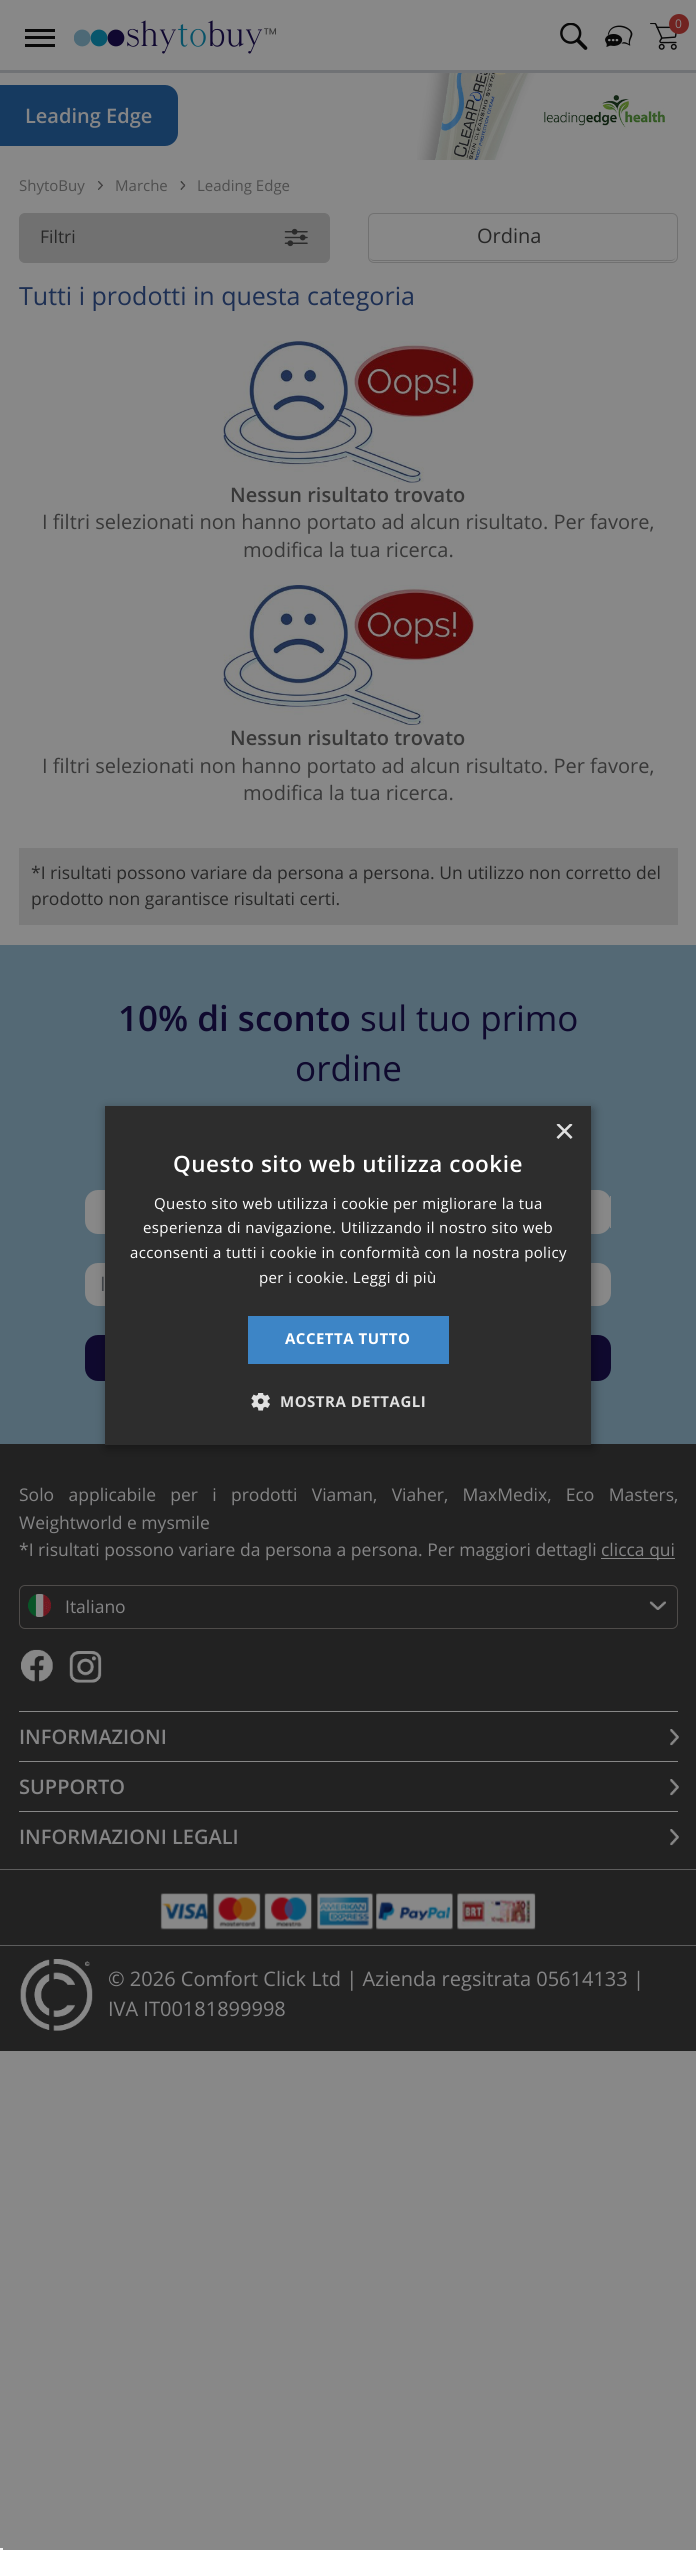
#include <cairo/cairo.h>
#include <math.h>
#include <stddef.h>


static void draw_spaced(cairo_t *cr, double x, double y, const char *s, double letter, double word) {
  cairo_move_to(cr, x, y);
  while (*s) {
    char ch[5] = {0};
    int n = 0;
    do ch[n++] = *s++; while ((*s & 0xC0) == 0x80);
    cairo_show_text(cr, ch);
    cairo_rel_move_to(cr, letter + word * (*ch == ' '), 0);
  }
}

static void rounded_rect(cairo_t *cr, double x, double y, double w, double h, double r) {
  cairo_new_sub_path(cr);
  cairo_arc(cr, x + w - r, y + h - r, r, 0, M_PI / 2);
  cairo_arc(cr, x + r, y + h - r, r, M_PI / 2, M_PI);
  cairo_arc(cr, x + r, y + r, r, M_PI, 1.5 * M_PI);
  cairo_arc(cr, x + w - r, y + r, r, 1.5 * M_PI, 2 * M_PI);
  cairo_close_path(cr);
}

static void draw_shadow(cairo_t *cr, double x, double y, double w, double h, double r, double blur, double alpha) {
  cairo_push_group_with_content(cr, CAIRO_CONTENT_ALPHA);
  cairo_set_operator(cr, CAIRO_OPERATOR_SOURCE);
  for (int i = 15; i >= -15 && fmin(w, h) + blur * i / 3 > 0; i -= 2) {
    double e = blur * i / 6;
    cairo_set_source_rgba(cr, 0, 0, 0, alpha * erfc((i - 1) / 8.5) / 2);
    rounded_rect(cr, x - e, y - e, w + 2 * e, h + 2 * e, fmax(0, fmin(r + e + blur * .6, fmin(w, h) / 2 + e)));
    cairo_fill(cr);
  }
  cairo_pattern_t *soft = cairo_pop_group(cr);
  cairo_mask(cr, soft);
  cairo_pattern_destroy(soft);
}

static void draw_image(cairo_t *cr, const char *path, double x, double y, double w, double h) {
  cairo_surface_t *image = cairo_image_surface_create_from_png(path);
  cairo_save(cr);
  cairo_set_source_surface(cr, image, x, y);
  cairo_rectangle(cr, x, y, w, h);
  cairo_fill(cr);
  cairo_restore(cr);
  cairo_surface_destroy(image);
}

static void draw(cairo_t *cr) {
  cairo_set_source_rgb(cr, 136 / 255.0, 136 / 255.0, 136 / 255.0);
  cairo_paint(cr);
  cairo_set_source_rgb(cr, 112 / 255.0, 114 / 255.0, 117 / 255.0);
  cairo_rectangle(cr, 0, 70, 696, 3);
  cairo_fill(cr);
  cairo_set_source_rgb(cr, 9 / 255.0, 9 / 255.0, 9 / 255.0);
  cairo_rectangle(cr, 25, 36, 30, 3);
  cairo_fill(cr);
  cairo_rectangle(cr, 25, 29, 30, 3);
  cairo_fill(cr);
  cairo_rectangle(cr, 25, 44, 30, 3);
  cairo_fill(cr);
  draw_image(cr, "images/1.png", 74, 20, 202, 34);
  draw_image(cr, "images/2.png", 560, 23, 28, 27);
  draw_image(cr, "images/3.png", 605, 25, 28, 22);
  draw_image(cr, "images/4.png", 650, 23, 27, 27);
  cairo_set_source_rgb(cr, 113 / 255.0, 36 / 255.0, 33 / 255.0);
  cairo_arc(cr, 679, 24, 10, 0, 2 * M_PI);
  cairo_fill(cr);
  cairo_set_source_rgb(cr, 22 / 255.0, 58 / 255.0, 96 / 255.0);
  cairo_new_path(cr);
  cairo_move_to(cr, 0, 85);
  cairo_line_to(cr, 165, 85);
  cairo_curve_to(cr, 172, 85, 178, 91, 178, 98);
  cairo_line_to(cr, 178, 133);
  cairo_curve_to(cr, 178, 140, 172, 146, 165, 146);
  cairo_line_to(cr, 0, 146);
  cairo_close_path(cr);
  cairo_fill(cr);
  draw_image(cr, "images/5.png", 417, 73, 248, 87);
  draw_image(cr, "images/6.png", 98, 181, 5, 9);
  draw_image(cr, "images/7.png", 180, 181, 6, 9);
  cairo_set_source_rgb(cr, 113 / 255.0, 113 / 255.0, 113 / 255.0);
  rounded_rect(cr, 19.5, 213.5, 310, 49, 5.5);
  cairo_fill_preserve(cr);
  cairo_set_line_width(cr, 1);
  cairo_stroke(cr);
  draw_image(cr, "images/8.png", 284, 228, 24, 19);
  cairo_new_path(cr);
  cairo_move_to(cr, 369, 255);
  cairo_curve_to(cr, 369, 258, 371, 261, 374, 261);
  cairo_line_to(cr, 671, 261);
  cairo_curve_to(cr, 674, 261, 676, 258, 676, 255);
  cairo_curve_to(cr, 676, 258, 674, 260, 671, 260);
  cairo_line_to(cr, 374, 260);
  cairo_curve_to(cr, 371, 260, 369, 258, 369, 255);
  cairo_close_path(cr);
  cairo_fill(cr);
  rounded_rect(cr, 368.5, 213.5, 309, 49, 5.5);
  cairo_stroke(cr);
  draw_image(cr, "images/9.png", 223, 341, 251, 142);
  draw_image(cr, "images/10.png", 223, 585, 251, 140);
  cairo_set_source_rgb(cr, 123 / 255.0, 123 / 255.0, 123 / 255.0);
  cairo_rectangle(cr, 19, 848, 659, 77);
  cairo_fill(cr);
  cairo_set_source_rgb(cr, 84 / 255.0, 105 / 255.0, 117 / 255.0);
  cairo_rectangle(cr, 0, 945, 696, 499);
  cairo_fill(cr);
  cairo_set_source_rgb(cr, 136 / 255.0, 136 / 255.0, 136 / 255.0);
  rounded_rect(cr, 85, 1190, 526, 44, 13);
  cairo_fill(cr);
  cairo_rectangle(cr, 610, 1196, 1, 32);
  cairo_fill(cr);
  rounded_rect(cr, 85, 1263, 526, 43, 13);
  cairo_fill(cr);
  cairo_set_source_rgb(cr, 15 / 255.0, 9 / 255.0, 46 / 255.0);
  rounded_rect(cr, 85, 1335, 526, 46, 13);
  cairo_fill(cr);
  cairo_set_source_rgb(cr, 34 / 255.0, 34 / 255.0, 34 / 255.0);
  cairo_rectangle(cr, 0, 1444, 696, 607);
  cairo_fill(cr);
  cairo_set_source_rgb(cr, 136 / 255.0, 136 / 255.0, 136 / 255.0);
  cairo_rectangle(cr, 601, 1558, 74, 1);
  cairo_fill(cr);
  rounded_rect(cr, 19.5, 1585.5, 658, 43, 5.5);
  cairo_set_source_rgb(cr, 79 / 255.0, 76 / 255.0, 74 / 255.0);
  cairo_stroke(cr);
  draw_image(cr, "images/11.png", 28, 1594, 23, 23);
  draw_image(cr, "images/12.png", 649, 1601, 17, 9);
  draw_image(cr, "images/13.png", 21, 1649, 32, 33);
  draw_image(cr, "images/14.png", 69, 1651, 33, 32);
  cairo_set_source_rgb(cr, 136 / 255.0, 136 / 255.0, 136 / 255.0);
  cairo_rectangle(cr, 19, 1711, 659, 1);
  cairo_fill(cr);
  draw_image(cr, "images/15.png", 670, 1729, 9, 17);
  cairo_rectangle(cr, 19, 1761, 659, 1);
  cairo_fill(cr);
  draw_image(cr, "images/15.png", 670, 1779, 9, 17);
  cairo_rectangle(cr, 19, 1811, 659, 1);
  cairo_fill(cr);
  draw_image(cr, "images/15.png", 670, 1829, 9, 17);
  cairo_set_source_rgb(cr, 93 / 255.0, 93 / 255.0, 93 / 255.0);
  cairo_rectangle(cr, 0, 1869, 696, 1);
  cairo_fill(cr);
  draw_image(cr, "images/16.png", 160, 1893, 376, 37);
  cairo_rectangle(cr, 0, 1945, 696, 1);
  cairo_fill(cr);
  draw_image(cr, "images/17.png", 20, 1959, 73, 72);
  cairo_set_source_rgb(cr, 0, 0, 0);
  draw_shadow(cr, 106, 1109, 487, 339, 0, 5, 0.35);
  cairo_set_source_rgb(cr, 45 / 255.0, 45 / 255.0, 45 / 255.0);
  cairo_rectangle(cr, 105, 1106, 486, 339);
  cairo_fill(cr);
  cairo_set_source_rgb(cr, 61 / 255.0, 133 / 255.0, 198 / 255.0);
  cairo_rectangle(cr, 248, 1316, 201, 48);
  cairo_fill(cr);
  draw_image(cr, "images/18.png", 251, 1393, 19, 18);
  cairo_set_source_rgb(cr, 245 / 255.0, 245 / 255.0, 245 / 255.0);
  cairo_rectangle(cr, 0, 2548, 3, 2);
  cairo_fill(cr);
  cairo_select_font_face(cr, "Open Sans", CAIRO_FONT_SLANT_NORMAL, CAIRO_FONT_WEIGHT_NORMAL);
  cairo_set_font_size(cr, 12);
  cairo_set_source_rgb(cr, 133 / 255.0, 133 / 255.0, 134 / 255.0);
  cairo_move_to(cr, 675, 28);
  cairo_show_text(cr, "0");
  cairo_select_font_face(cr, "Open Sans SemiBold", CAIRO_FONT_SLANT_NORMAL, CAIRO_FONT_WEIGHT_NORMAL);
  cairo_set_font_size(cr, 20);
  cairo_move_to(cr, 25, 123);
  cairo_show_text(cr, "Leading Edge");
  cairo_select_font_face(cr, "Open Sans", CAIRO_FONT_SLANT_NORMAL, CAIRO_FONT_WEIGHT_NORMAL);
  cairo_set_font_size(cr, 15);
  cairo_set_source_rgb(cr, 78 / 255.0, 78 / 255.0, 78 / 255.0);
  cairo_move_to(cr, 19, 191);
  cairo_show_text(cr, "ShytoBuy");
  cairo_move_to(cr, 115, 191);
  cairo_show_text(cr, "Marche");
  cairo_move_to(cr, 197, 191);
  cairo_show_text(cr, "Leading Edge");
  cairo_set_font_size(cr, 17.5);
  cairo_set_source_rgb(cr, 39 / 255.0, 39 / 255.0, 39 / 255.0);
  cairo_move_to(cr, 40, 243);
  cairo_show_text(cr, "Filtri");
  cairo_set_font_size(cr, 20);
  cairo_move_to(cr, 477, 243);
  cairo_show_text(cr, "Ordina");
  cairo_set_font_size(cr, 25);
  cairo_set_source_rgb(cr, 29 / 255.0, 47 / 255.0, 83 / 255.0);
  cairo_move_to(cr, 19, 305);
  cairo_show_text(cr, "Tutti i prodotti in questa categoria");
  cairo_select_font_face(cr, "Open Sans SemiBold", CAIRO_FONT_SLANT_NORMAL, CAIRO_FONT_WEIGHT_NORMAL);
  cairo_set_font_size(cr, 20);
  cairo_set_source_rgb(cr, 56 / 255.0, 56 / 255.0, 56 / 255.0);
  cairo_move_to(cr, 230, 502);
  cairo_show_text(cr, "Nessun risultato trovato");
  cairo_select_font_face(cr, "Open Sans", CAIRO_FONT_SLANT_NORMAL, CAIRO_FONT_WEIGHT_NORMAL);
  cairo_move_to(cr, 42, 529);
  cairo_show_text(cr, "I filtri selezionati non hanno portato ad alcun risultato. Per favore,");
  cairo_move_to(cr, 243, 557);
  cairo_show_text(cr, "modifica la tua ricerca.");
  cairo_select_font_face(cr, "Open Sans SemiBold", CAIRO_FONT_SLANT_NORMAL, CAIRO_FONT_WEIGHT_NORMAL);
  cairo_move_to(cr, 230, 745);
  cairo_show_text(cr, "Nessun risultato trovato");
  cairo_select_font_face(cr, "Open Sans", CAIRO_FONT_SLANT_NORMAL, CAIRO_FONT_WEIGHT_NORMAL);
  cairo_move_to(cr, 42, 773);
  cairo_show_text(cr, "I filtri selezionati non hanno portato ad alcun risultato. Per favore,");
  cairo_move_to(cr, 243, 800);
  cairo_show_text(cr, "modifica la tua ricerca.");
  cairo_set_font_size(cr, 17.5);
  cairo_set_source_rgb(cr, 39 / 255.0, 39 / 255.0, 39 / 255.0);
  cairo_move_to(cr, 31, 879);
  cairo_show_text(cr, "*I risultati possono variare da persona a persona. Un utilizzo non corretto del");
  cairo_move_to(cr, 31, 905);
  cairo_show_text(cr, "prodotto non garantisce risultati certi.");
  cairo_select_font_face(cr, "Open Sans SemiBold", CAIRO_FONT_SLANT_NORMAL, CAIRO_FONT_WEIGHT_NORMAL);
  cairo_set_font_size(cr, 35);
  cairo_set_source_rgb(cr, 15 / 255.0, 9 / 255.0, 46 / 255.0);
  cairo_move_to(cr, 118, 1031);
  cairo_show_text(cr, "10% di sconto");
  cairo_select_font_face(cr, "Open Sans", CAIRO_FONT_SLANT_NORMAL, CAIRO_FONT_WEIGHT_NORMAL);
  cairo_move_to(cr, 360, 1031);
  cairo_show_text(cr, "sul tuo primo");
  cairo_move_to(cr, 295, 1081);
  cairo_show_text(cr, "ordine");
  cairo_set_font_size(cr, 20);
  cairo_set_source_rgb(cr, 63 / 255.0, 67 / 255.0, 71 / 255.0);
  cairo_move_to(cr, 100, 1291);
  cairo_show_text(cr, "I");
  cairo_set_font_size(cr, 17.5);
  cairo_set_source_rgb(cr, 133 / 255.0, 133 / 255.0, 134 / 255.0);
  draw_spaced(cr, 19, 1501, "Solo applicabile per i prodotti Viaman, Viaher, MaxMedix, Eco Masters,", 0, 9.75);
  cairo_move_to(cr, 19, 1529);
  cairo_show_text(cr, "Weightworld e mysmile");
  cairo_move_to(cr, 19, 1556);
  cairo_show_text(cr, "*I risultati possono variare da persona a persona. Per maggiori dettagli");
  cairo_move_to(cr, 601, 1556);
  cairo_show_text(cr, "clicca qui");
  cairo_move_to(cr, 65, 1613);
  cairo_show_text(cr, "Italiano");
  cairo_select_font_face(cr, "Open Sans SemiBold", CAIRO_FONT_SLANT_NORMAL, CAIRO_FONT_WEIGHT_NORMAL);
  cairo_set_font_size(cr, 20);
  cairo_move_to(cr, 19, 1744);
  cairo_show_text(cr, "INFORMAZIONI");
  cairo_move_to(cr, 19, 1794);
  cairo_show_text(cr, "SUPPORTO");
  cairo_move_to(cr, 19, 1844);
  cairo_show_text(cr, "INFORMAZIONI LEGALI");
  cairo_select_font_face(cr, "Open Sans", CAIRO_FONT_SLANT_NORMAL, CAIRO_FONT_WEIGHT_NORMAL);
  cairo_move_to(cr, 108, 1986);
  cairo_show_text(cr, "© 2026 Comfort Click Ltd | Azienda regsitrata 05614133 |");
  cairo_move_to(cr, 108, 2016);
  cairo_show_text(cr, "IVA IT00181899998");
  cairo_save(cr);
  cairo_rectangle(cr, 554, 1124, 19, 19);
  cairo_clip(cr);
  cairo_select_font_face(cr, "Liberation Sans", CAIRO_FONT_SLANT_NORMAL, CAIRO_FONT_WEIGHT_NORMAL);
  cairo_set_font_size(cr, 36);
  cairo_set_source_rgb(cr, 224 / 255.0, 224 / 255.0, 224 / 255.0);
  cairo_move_to(cr, 554, 1143);
  cairo_show_text(cr, "×");
  cairo_restore(cr);
  cairo_select_font_face(cr, "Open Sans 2 SemiBold", CAIRO_FONT_SLANT_NORMAL, CAIRO_FONT_WEIGHT_NORMAL);
  cairo_set_font_size(cr, 22.5);
  cairo_set_source_rgb(cr, 1, 1, 1);
  draw_spaced(cr, 173, 1172, "Questo sito web utilizza cookie", 0.5, 0);
  cairo_select_font_face(cr, "Open Sans 2", CAIRO_FONT_SLANT_NORMAL, CAIRO_FONT_WEIGHT_NORMAL);
  cairo_set_font_size(cr, 15);
  draw_spaced(cr, 154, 1209, "Questo sito web utilizza i cookie per migliorare la tua", 0.38, 0);
  draw_spaced(cr, 143, 1233, "esperienza di navigazione. Utilizzando il nostro sito web", 0.38, 0);
  draw_spaced(cr, 130, 1258, "acconsenti a tutti i cookie in conformità con la nostra policy", 0.38, 0);
  draw_spaced(cr, 259, 1283, "per i cookie. Leggi di più", 0.38, 0);
  cairo_select_font_face(cr, "Open Sans", CAIRO_FONT_SLANT_NORMAL, CAIRO_FONT_WEIGHT_BOLD);
  draw_spaced(cr, 285, 1344, "ACCETTA TUTTO", 0.5, 0);
  cairo_set_source_rgb(cr, 224 / 255.0, 224 / 255.0, 224 / 255.0);
  draw_spaced(cr, 280, 1407, "MOSTRA DETTAGLI", 0.5, 0);
}

int main(void) {
  cairo_surface_t *surface = cairo_image_surface_create(CAIRO_FORMAT_RGB24, 696, 2550);
  cairo_t *cr = cairo_create(surface);
  cairo_font_options_t *options = cairo_font_options_create();
  cairo_font_options_set_hint_metrics(options, CAIRO_HINT_METRICS_OFF);
  cairo_font_options_set_hint_style(options, CAIRO_HINT_STYLE_NONE);
  cairo_set_font_options(cr, options);
  cairo_set_miter_limit(cr, 4);
  draw(cr);
  cairo_surface_write_to_png(surface, "out.png");
  cairo_font_options_destroy(options);
  cairo_destroy(cr);
  cairo_surface_destroy(surface);
  return 0;
}
